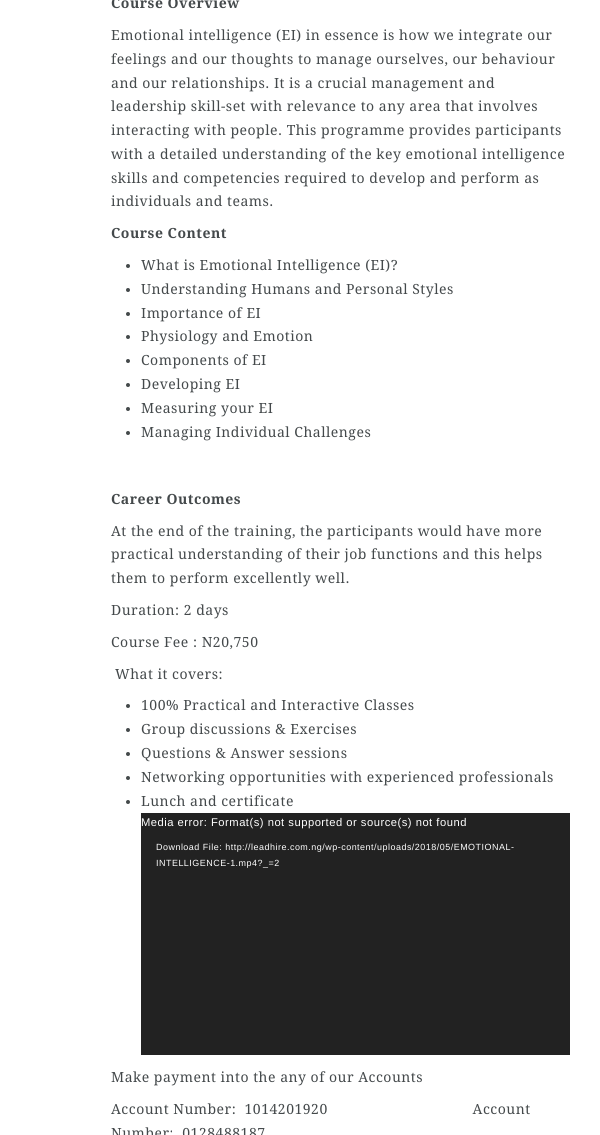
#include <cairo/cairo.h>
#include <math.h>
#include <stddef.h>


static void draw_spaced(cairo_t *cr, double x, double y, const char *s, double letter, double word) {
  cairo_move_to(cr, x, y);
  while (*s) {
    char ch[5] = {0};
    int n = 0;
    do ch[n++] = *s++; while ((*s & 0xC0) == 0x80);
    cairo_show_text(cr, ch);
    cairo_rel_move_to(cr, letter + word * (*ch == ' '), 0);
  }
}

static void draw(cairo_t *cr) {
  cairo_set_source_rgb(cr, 1, 1, 1);
  cairo_paint(cr);
  cairo_set_source_rgb(cr, 68 / 255.0, 73 / 255.0, 75 / 255.0);
  cairo_arc(cr, 128, 266, 2, 0, 2 * M_PI);
  cairo_fill(cr);
  cairo_arc(cr, 128, 290, 2, 0, 2 * M_PI);
  cairo_fill(cr);
  cairo_arc(cr, 128, 314, 2, 0, 2 * M_PI);
  cairo_fill(cr);
  cairo_arc(cr, 128, 337, 2, 0, 2 * M_PI);
  cairo_fill(cr);
  cairo_arc(cr, 128, 361, 2, 0, 2 * M_PI);
  cairo_fill(cr);
  cairo_arc(cr, 128, 385, 2, 0, 2 * M_PI);
  cairo_fill(cr);
  cairo_arc(cr, 128, 409, 2, 0, 2 * M_PI);
  cairo_fill(cr);
  cairo_arc(cr, 128, 433, 2, 0, 2 * M_PI);
  cairo_fill(cr);
  cairo_arc(cr, 128, 706, 2, 0, 2 * M_PI);
  cairo_fill(cr);
  cairo_arc(cr, 128, 730, 2, 0, 2 * M_PI);
  cairo_fill(cr);
  cairo_arc(cr, 128, 754, 2, 0, 2 * M_PI);
  cairo_fill(cr);
  cairo_arc(cr, 128, 778, 2, 0, 2 * M_PI);
  cairo_fill(cr);
  cairo_arc(cr, 128, 802, 2, 0, 2 * M_PI);
  cairo_fill(cr);
  cairo_set_source_rgb(cr, 34 / 255.0, 34 / 255.0, 34 / 255.0);
  cairo_rectangle(cr, 141, 813, 429, 242);
  cairo_fill(cr);
  cairo_select_font_face(cr, "Droid Serif", CAIRO_FONT_SLANT_NORMAL, CAIRO_FONT_WEIGHT_BOLD);
  cairo_set_font_size(cr, 14);
  cairo_set_source_rgb(cr, 68 / 255.0, 73 / 255.0, 75 / 255.0);
  draw_spaced(cr, 111, 8, "Course Overview", 0.5, 0);
  cairo_select_font_face(cr, "Droid Serif", CAIRO_FONT_SLANT_NORMAL, CAIRO_FONT_WEIGHT_NORMAL);
  draw_spaced(cr, 111, 40, "Emotional intelligence (EI) in essence is how we integrate our", 0.5, 0);
  draw_spaced(cr, 111, 64, "feelings and our thoughts to manage ourselves, our behaviour", 0.5, 0);
  draw_spaced(cr, 111, 88, "and our relationships. It is a crucial management and", 0.5, 0);
  draw_spaced(cr, 111, 111, "leadership skill-set with relevance to any area that involves", 0.5, 0);
  draw_spaced(cr, 111, 135, "interacting with people. This programme provides participants", 0.5, 0);
  draw_spaced(cr, 111, 159, "with a detailed understanding of the key emotional intelligence", 0.5, 0);
  draw_spaced(cr, 111, 183, "skills and competencies required to develop and perform as", 0.5, 0);
  draw_spaced(cr, 111, 206, "individuals and teams.", 0.5, 0);
  cairo_select_font_face(cr, "Droid Serif", CAIRO_FONT_SLANT_NORMAL, CAIRO_FONT_WEIGHT_BOLD);
  draw_spaced(cr, 111, 238, "Course Content", 0.5, 0);
  cairo_select_font_face(cr, "Droid Serif", CAIRO_FONT_SLANT_NORMAL, CAIRO_FONT_WEIGHT_NORMAL);
  draw_spaced(cr, 141, 270, "What is Emotional Intelligence (EI)?", 0.5, 0);
  draw_spaced(cr, 141, 294, "Understanding Humans and Personal Styles", 0.5, 0);
  draw_spaced(cr, 141, 318, "Importance of EI", 0.5, 0);
  draw_spaced(cr, 141, 341, "Physiology and Emotion", 0.5, 0);
  draw_spaced(cr, 141, 365, "Components of EI", 0.5, 0);
  draw_spaced(cr, 141, 389, "Developing EI", 0.5, 0);
  draw_spaced(cr, 141, 413, "Measuring your EI", 0.5, 0);
  draw_spaced(cr, 141, 437, "Managing Individual Challenges", 0.5, 0);
  cairo_select_font_face(cr, "Droid Serif", CAIRO_FONT_SLANT_NORMAL, CAIRO_FONT_WEIGHT_BOLD);
  draw_spaced(cr, 111, 504, "Career Outcomes", 0.5, 0);
  cairo_select_font_face(cr, "Droid Serif", CAIRO_FONT_SLANT_NORMAL, CAIRO_FONT_WEIGHT_NORMAL);
  draw_spaced(cr, 111, 536, "At the end of the training, the participants would have more", 0.5, 0);
  draw_spaced(cr, 111, 559, "practical understanding of their job functions and this helps", 0.5, 0);
  draw_spaced(cr, 111, 583, "them to perform excellently well.", 0.5, 0);
  draw_spaced(cr, 111, 615, "Duration: 2 days", 0.5, 0);
  draw_spaced(cr, 111, 647, "Course Fee : N20,750", 0.5, 0);
  draw_spaced(cr, 115, 679, "What it covers:", 0.5, 0);
  draw_spaced(cr, 141, 710, "100% Practical and Interactive Classes", 0.5, 0);
  draw_spaced(cr, 141, 734, "Group discussions & Exercises", 0.5, 0);
  draw_spaced(cr, 141, 758, "Questions & Answer sessions", 0.5, 0);
  draw_spaced(cr, 141, 782, "Networking opportunities with experienced professionals", 0.5, 0);
  draw_spaced(cr, 141, 806, "Lunch and certificate", 0.5, 0);
  cairo_select_font_face(cr, "Liberation Sans", CAIRO_FONT_SLANT_NORMAL, CAIRO_FONT_WEIGHT_NORMAL);
  cairo_set_font_size(cr, 11.2);
  cairo_set_source_rgb(cr, 1, 1, 1);
  draw_spaced(cr, 141, 826, "Media error: Format(s) not supported or source(s) not found", 0.5, 0);
  cairo_set_font_size(cr, 8.95);
  draw_spaced(cr, 156, 850, "Download File: http://leadhire.com.ng/wp-content/uploads/2018/05/EMOTIONAL-", 0.5, 0);
  draw_spaced(cr, 156, 866, "INTELLIGENCE-1.mp4?_=2", 0.5, 0);
  cairo_select_font_face(cr, "Droid Serif", CAIRO_FONT_SLANT_NORMAL, CAIRO_FONT_WEIGHT_NORMAL);
  cairo_set_font_size(cr, 14);
  cairo_set_source_rgb(cr, 68 / 255.0, 73 / 255.0, 75 / 255.0);
  draw_spaced(cr, 111, 1082, "Make payment into the any of our Accounts", 0.5, 0);
  draw_spaced(cr, 111, 1114, "Account Number:  1014201920                                   Account", 0.5, 0);
  draw_spaced(cr, 111, 1138, "Number:  0128488187", 0.5, 0);
}

int main(void) {
  cairo_surface_t *surface = cairo_image_surface_create(CAIRO_FORMAT_RGB24, 600, 1135);
  cairo_t *cr = cairo_create(surface);
  cairo_font_options_t *options = cairo_font_options_create();
  cairo_font_options_set_hint_metrics(options, CAIRO_HINT_METRICS_OFF);
  cairo_font_options_set_hint_style(options, CAIRO_HINT_STYLE_NONE);
  cairo_set_font_options(cr, options);
  cairo_set_miter_limit(cr, 4);
  draw(cr);
  cairo_surface_write_to_png(surface, "out.png");
  cairo_font_options_destroy(options);
  cairo_destroy(cr);
  cairo_surface_destroy(surface);
  return 0;
}
